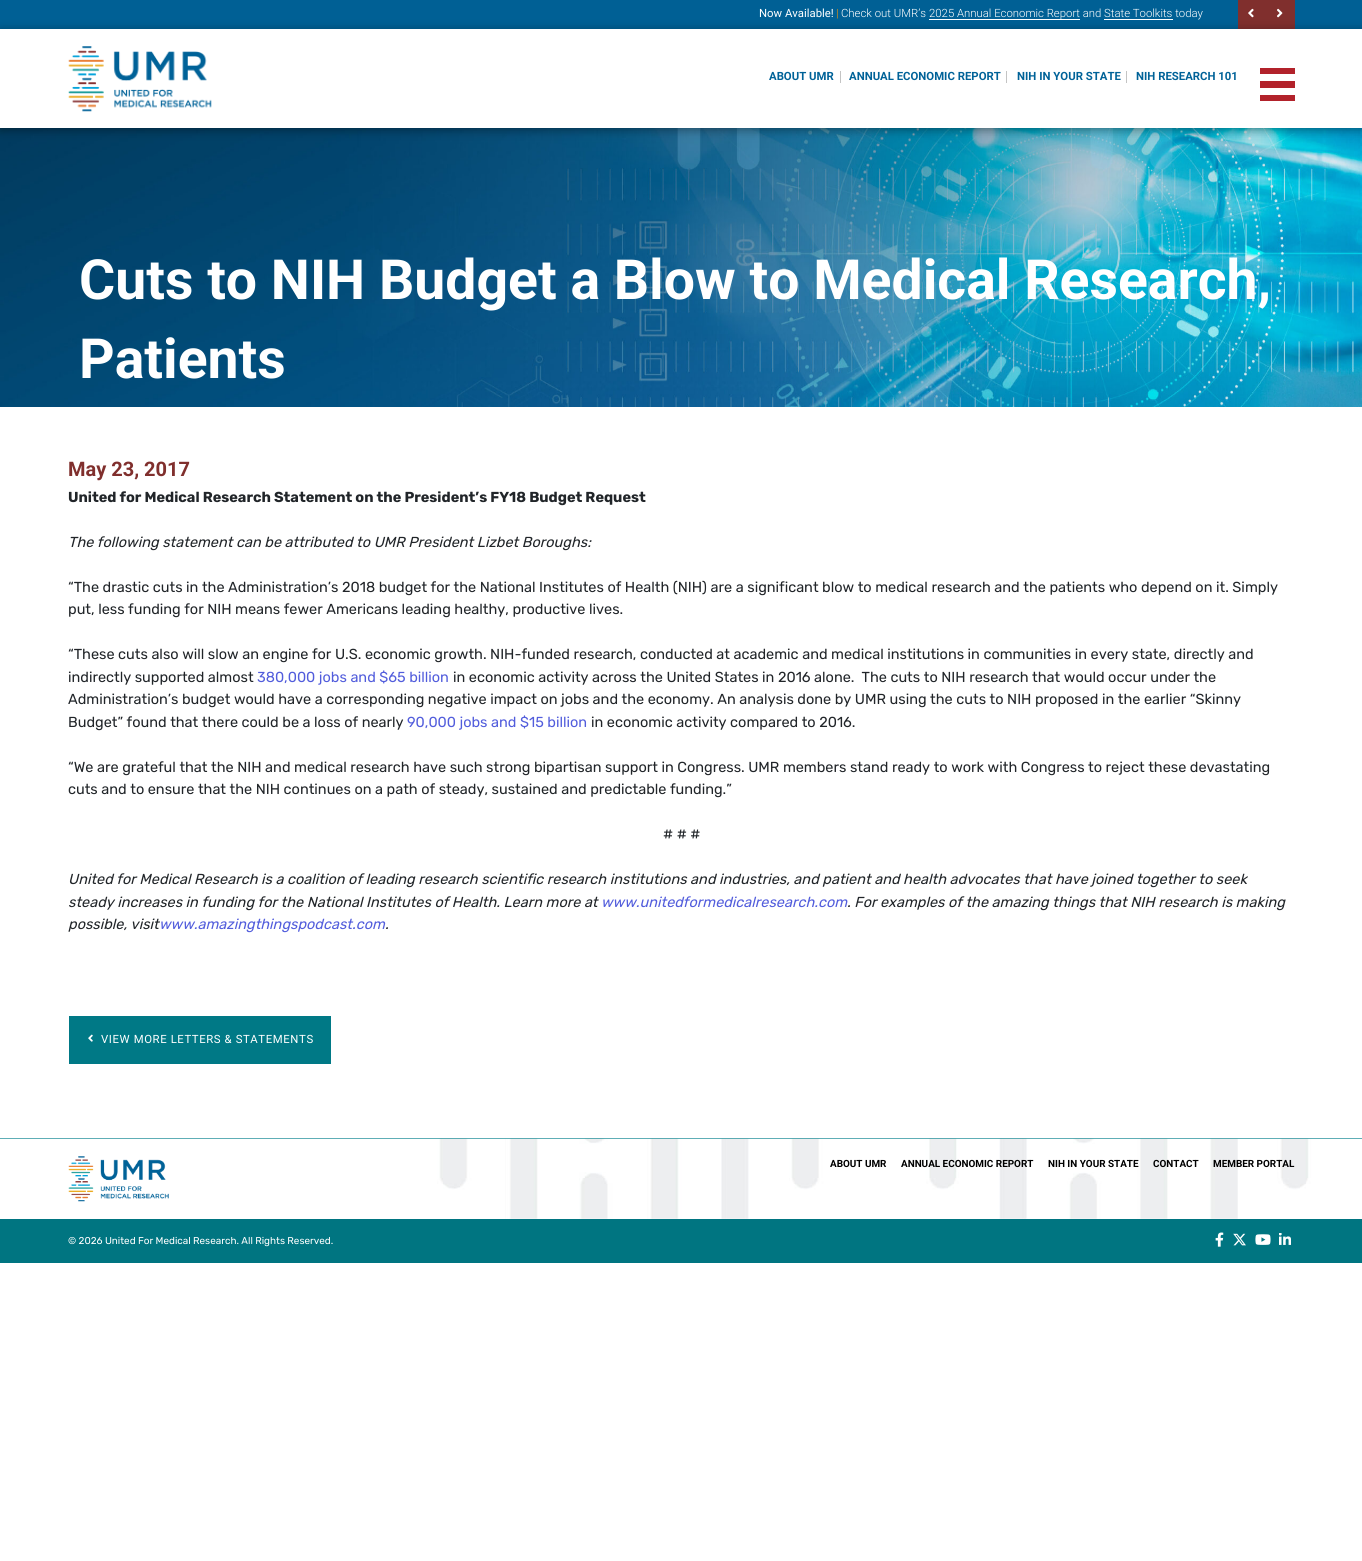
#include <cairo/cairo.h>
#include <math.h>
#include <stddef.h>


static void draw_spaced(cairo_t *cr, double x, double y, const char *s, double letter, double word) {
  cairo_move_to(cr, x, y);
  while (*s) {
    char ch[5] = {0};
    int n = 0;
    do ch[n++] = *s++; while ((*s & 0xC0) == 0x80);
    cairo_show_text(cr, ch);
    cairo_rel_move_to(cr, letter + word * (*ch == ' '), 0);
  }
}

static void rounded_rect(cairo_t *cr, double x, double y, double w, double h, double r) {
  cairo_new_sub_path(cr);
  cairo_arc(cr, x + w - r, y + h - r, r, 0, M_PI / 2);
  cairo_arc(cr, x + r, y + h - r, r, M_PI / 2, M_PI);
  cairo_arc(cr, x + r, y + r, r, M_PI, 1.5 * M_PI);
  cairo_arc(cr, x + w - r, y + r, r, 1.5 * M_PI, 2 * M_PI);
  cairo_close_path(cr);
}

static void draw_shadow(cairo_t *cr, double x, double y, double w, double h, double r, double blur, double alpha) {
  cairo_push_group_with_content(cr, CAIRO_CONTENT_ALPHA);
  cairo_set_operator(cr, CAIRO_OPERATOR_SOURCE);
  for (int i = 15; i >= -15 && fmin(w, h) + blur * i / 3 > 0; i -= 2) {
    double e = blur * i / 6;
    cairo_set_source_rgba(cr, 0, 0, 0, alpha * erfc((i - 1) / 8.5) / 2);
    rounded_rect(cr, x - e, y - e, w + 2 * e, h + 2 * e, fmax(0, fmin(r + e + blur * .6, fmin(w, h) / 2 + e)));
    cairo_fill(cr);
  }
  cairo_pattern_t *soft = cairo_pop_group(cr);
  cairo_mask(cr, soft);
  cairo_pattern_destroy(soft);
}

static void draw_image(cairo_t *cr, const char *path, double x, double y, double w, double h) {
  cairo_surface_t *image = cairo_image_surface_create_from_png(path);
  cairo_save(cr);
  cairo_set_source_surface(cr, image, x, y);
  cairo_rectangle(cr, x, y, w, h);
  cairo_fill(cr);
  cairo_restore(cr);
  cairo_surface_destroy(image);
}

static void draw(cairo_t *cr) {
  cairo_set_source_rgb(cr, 1, 1, 1);
  cairo_paint(cr);
  cairo_set_source_rgb(cr, 0, 96 / 255.0, 149 / 255.0);
  cairo_rectangle(cr, 0, 0, 1362, 29);
  cairo_fill(cr);
  cairo_set_source_rgb(cr, 1, 1, 1);
  cairo_rectangle(cr, 929, 19, 151, 1);
  cairo_fill(cr);
  cairo_rectangle(cr, 1104, 19, 69, 1);
  cairo_fill(cr);
  cairo_set_source_rgb(cr, 128 / 255.0, 47 / 255.0, 45 / 255.0);
  cairo_rectangle(cr, 1238, 0, 57, 29);
  cairo_fill(cr);
  draw_image(cr, "images/1.png", 1248, 8, 6, 10);
  draw_image(cr, "images/2.png", 1277, 8, 6, 10);
  draw_image(cr, "images/4.png", 0, 128, 1362, 279);
  cairo_set_source_rgb(cr, 0, 0, 0);
  draw_shadow(cr, 0, 31, 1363, 99, 0, 5, 0.4);
  cairo_set_source_rgb(cr, 1, 1, 1);
  cairo_rectangle(cr, 0, 29, 1362, 99);
  cairo_fill(cr);
  draw_image(cr, "images/3.png", 68, 46, 144, 66);
  cairo_set_source_rgb(cr, 196 / 255.0, 196 / 255.0, 196 / 255.0);
  cairo_rectangle(cr, 840, 71, 1, 12);
  cairo_fill(cr);
  cairo_rectangle(cr, 1006, 71, 1, 12);
  cairo_fill(cr);
  cairo_rectangle(cr, 1126, 71, 1, 12);
  cairo_fill(cr);
  cairo_set_source_rgb(cr, 178 / 255.0, 34 / 255.0, 43 / 255.0);
  cairo_rectangle(cr, 1260, 68, 35, 6);
  cairo_fill(cr);
  cairo_rectangle(cr, 1260, 81, 35, 7);
  cairo_fill(cr);
  cairo_rectangle(cr, 1260, 95, 35, 6);
  cairo_fill(cr);
  cairo_set_source_rgb(cr, 40 / 255.0, 147 / 255.0, 157 / 255.0);
  cairo_rectangle(cr, 0, 1138, 1362, 1);
  cairo_fill(cr);
  cairo_set_source_rgb(cr, 0, 121 / 255.0, 134 / 255.0);
  cairo_rectangle(cr, 69, 1016, 262, 48);
  cairo_fill(cr);
  draw_image(cr, "images/5.png", 88, 1034, 5, 8);
  draw_image(cr, "images/6.png", 0, 1138, 1362, 81);
  draw_image(cr, "images/7.png", 68, 1156, 101, 46);
  cairo_set_source_rgb(cr, 0, 117 / 255.0, 129 / 255.0);
  cairo_rectangle(cr, 0, 1219, 1362, 44);
  cairo_fill(cr);
  draw_image(cr, "images/8.png", 1215, 1232, 9, 15);
  draw_image(cr, "images/9.png", 1233, 1233, 13, 13);
  draw_image(cr, "images/10.png", 1255, 1234, 16, 11);
  draw_image(cr, "images/11.png", 1279, 1233, 12, 12);
  cairo_select_font_face(cr, "Roboto", CAIRO_FONT_SLANT_NORMAL, CAIRO_FONT_WEIGHT_NORMAL);
  cairo_set_font_size(cr, 11.35);
  cairo_set_source_rgb(cr, 1, 1, 1);
  cairo_move_to(cr, 759, 17);
  cairo_show_text(cr, "Now Available!");
  cairo_select_font_face(cr, "Roboto Light", CAIRO_FONT_SLANT_NORMAL, CAIRO_FONT_WEIGHT_NORMAL);
  cairo_set_source_rgb(cr, 1, 153 / 255.0, 0);
  cairo_move_to(cr, 836, 17);
  cairo_show_text(cr, "|");
  cairo_set_source_rgb(cr, 1, 1, 1);
  cairo_move_to(cr, 841, 17);
  cairo_show_text(cr, "Check out UMR’s");
  cairo_move_to(cr, 929, 17);
  cairo_show_text(cr, "2025 Annual Economic Report and State Toolkits today");
  cairo_select_font_face(cr, "Roboto", CAIRO_FONT_SLANT_NORMAL, CAIRO_FONT_WEIGHT_BOLD);
  cairo_set_source_rgb(cr, 0, 98 / 255.0, 152 / 255.0);
  cairo_move_to(cr, 769, 80);
  cairo_show_text(cr, "ABOUT UMR");
  cairo_move_to(cr, 849, 80);
  cairo_show_text(cr, "ANNUAL ECONOMIC REPORT");
  cairo_move_to(cr, 1017, 80);
  cairo_show_text(cr, "NIH IN YOUR STATE");
  cairo_move_to(cr, 1136, 80);
  cairo_show_text(cr, "NIH RESEARCH 101");
  cairo_set_font_size(cr, 55.35);
  cairo_set_source_rgb(cr, 1, 1, 1);
  cairo_move_to(cr, 79, 299);
  cairo_show_text(cr, "Cuts to NIH Budget a Blow to Medical Research,");
  cairo_move_to(cr, 79, 378);
  cairo_show_text(cr, "Patients");
  cairo_set_font_size(cr, 20);
  cairo_set_source_rgb(cr, 128 / 255.0, 47 / 255.0, 45 / 255.0);
  cairo_move_to(cr, 68, 476);
  cairo_show_text(cr, "May 23, 2017");
  cairo_select_font_face(cr, "Rubik", CAIRO_FONT_SLANT_NORMAL, CAIRO_FONT_WEIGHT_BOLD);
  cairo_set_font_size(cr, 14.48);
  cairo_set_source_rgb(cr, 33 / 255.0, 37 / 255.0, 41 / 255.0);
  cairo_move_to(cr, 68, 502);
  cairo_show_text(cr, "United for Medical Research Statement on the President’s FY18 Budget Request");
  cairo_select_font_face(cr, "Rubik", CAIRO_FONT_SLANT_ITALIC, CAIRO_FONT_WEIGHT_NORMAL);
  cairo_move_to(cr, 68, 547);
  cairo_show_text(cr, "The following statement can be attributed to UMR President Lizbet Boroughs:");
  cairo_select_font_face(cr, "Rubik", CAIRO_FONT_SLANT_NORMAL, CAIRO_FONT_WEIGHT_NORMAL);
  cairo_move_to(cr, 68, 592);
  cairo_show_text(cr, "“The drastic cuts in the Administration’s 2018 budget for the National Institutes of Health (NIH) are a significant blow to medical research and the patients who depend on it. Simply");
  cairo_move_to(cr, 68, 614);
  cairo_show_text(cr, "put, less funding for NIH means fewer Americans leading healthy, productive lives.");
  cairo_move_to(cr, 68, 659);
  cairo_show_text(cr, "“These cuts also will slow an engine for U.S. economic growth. NIH-funded research, conducted at academic and medical institutions in communities in every state, directly and");
  cairo_move_to(cr, 68, 682);
  cairo_show_text(cr, "indirectly supported almost");
  cairo_set_source_rgb(cr, 82 / 255.0, 93 / 255.0, 220 / 255.0);
  cairo_move_to(cr, 257, 682);
  cairo_show_text(cr, "380,000 jobs and $65 billion");
  cairo_set_source_rgb(cr, 33 / 255.0, 37 / 255.0, 41 / 255.0);
  cairo_move_to(cr, 453, 682);
  cairo_show_text(cr, "in economic activity across the United States in 2016 alone.  The cuts to NIH research that would occur under the");
  cairo_move_to(cr, 68, 704);
  cairo_show_text(cr, "Administration’s budget would have a corresponding negative impact on jobs and the economy. An analysis done by UMR using the cuts to NIH proposed in the earlier “Skinny");
  cairo_move_to(cr, 68, 727);
  cairo_show_text(cr, "Budget” found that there could be a loss of nearly");
  cairo_set_source_rgb(cr, 82 / 255.0, 93 / 255.0, 220 / 255.0);
  cairo_move_to(cr, 407, 727);
  cairo_show_text(cr, "90,000 jobs and $15 billion");
  cairo_set_source_rgb(cr, 33 / 255.0, 37 / 255.0, 41 / 255.0);
  cairo_move_to(cr, 591, 727);
  cairo_show_text(cr, "in economic activity compared to 2016.");
  cairo_move_to(cr, 68, 772);
  cairo_show_text(cr, "“We are grateful that the NIH and medical research have such strong bipartisan support in Congress. UMR members stand ready to work with Congress to reject these devastating");
  cairo_move_to(cr, 68, 794);
  cairo_show_text(cr, "cuts and to ensure that the NIH continues on a path of steady, sustained and predictable funding.”");
  cairo_move_to(cr, 663, 839);
  cairo_show_text(cr, "# # #");
  cairo_select_font_face(cr, "Rubik", CAIRO_FONT_SLANT_ITALIC, CAIRO_FONT_WEIGHT_NORMAL);
  cairo_move_to(cr, 68, 884);
  cairo_show_text(cr, "United for Medical Research is a coalition of leading research scientific research institutions and industries, and patient and health advocates that have joined together to seek");
  cairo_move_to(cr, 68, 907);
  cairo_show_text(cr, "steady increases in funding for the National Institutes of Health. Learn more at");
  cairo_set_source_rgb(cr, 82 / 255.0, 93 / 255.0, 220 / 255.0);
  cairo_move_to(cr, 601, 907);
  cairo_show_text(cr, "www.unitedformedicalresearch.com");
  cairo_set_source_rgb(cr, 33 / 255.0, 37 / 255.0, 41 / 255.0);
  cairo_move_to(cr, 847, 907);
  cairo_show_text(cr, ". For examples of the amazing things that NIH research is making");
  cairo_move_to(cr, 68, 929);
  cairo_show_text(cr, "possible, visit");
  cairo_set_source_rgb(cr, 82 / 255.0, 93 / 255.0, 220 / 255.0);
  cairo_move_to(cr, 159, 929);
  cairo_show_text(cr, "www.amazingthingspodcast.com");
  cairo_set_source_rgb(cr, 33 / 255.0, 37 / 255.0, 41 / 255.0);
  cairo_move_to(cr, 385, 929);
  cairo_show_text(cr, ".");
  cairo_select_font_face(cr, "Roboto", CAIRO_FONT_SLANT_NORMAL, CAIRO_FONT_WEIGHT_NORMAL);
  cairo_set_font_size(cr, 11.35);
  cairo_set_source_rgb(cr, 1, 1, 1);
  draw_spaced(cr, 101, 1043, "VIEW MORE LETTERS & STATEMENTS", 0.6, 0);
  cairo_select_font_face(cr, "Roboto", CAIRO_FONT_SLANT_NORMAL, CAIRO_FONT_WEIGHT_BOLD);
  cairo_set_font_size(cr, 9.9);
  cairo_set_source_rgb(cr, 0, 0, 0);
  cairo_move_to(cr, 830, 1167);
  cairo_show_text(cr, "ABOUT UMR");
  cairo_move_to(cr, 901, 1167);
  cairo_show_text(cr, "ANNUAL ECONOMIC REPORT");
  cairo_move_to(cr, 1048, 1167);
  cairo_show_text(cr, "NIH IN YOUR STATE");
  cairo_move_to(cr, 1153, 1167);
  cairo_show_text(cr, "CONTACT");
  cairo_move_to(cr, 1213, 1167);
  cairo_show_text(cr, "MEMBER PORTAL");
  cairo_select_font_face(cr, "Rubik", CAIRO_FONT_SLANT_NORMAL, CAIRO_FONT_WEIGHT_NORMAL);
  cairo_set_source_rgb(cr, 1, 1, 1);
  cairo_move_to(cr, 68, 1244);
  cairo_show_text(cr, "© 2026 United For Medical Research. All Rights Reserved.");
}

int main(void) {
  cairo_surface_t *surface = cairo_image_surface_create(CAIRO_FORMAT_RGB24, 1362, 1561);
  cairo_t *cr = cairo_create(surface);
  cairo_font_options_t *options = cairo_font_options_create();
  cairo_font_options_set_hint_metrics(options, CAIRO_HINT_METRICS_OFF);
  cairo_font_options_set_hint_style(options, CAIRO_HINT_STYLE_NONE);
  cairo_set_font_options(cr, options);
  cairo_set_miter_limit(cr, 4);
  draw(cr);
  cairo_surface_write_to_png(surface, "out.png");
  cairo_font_options_destroy(options);
  cairo_destroy(cr);
  cairo_surface_destroy(surface);
  return 0;
}
